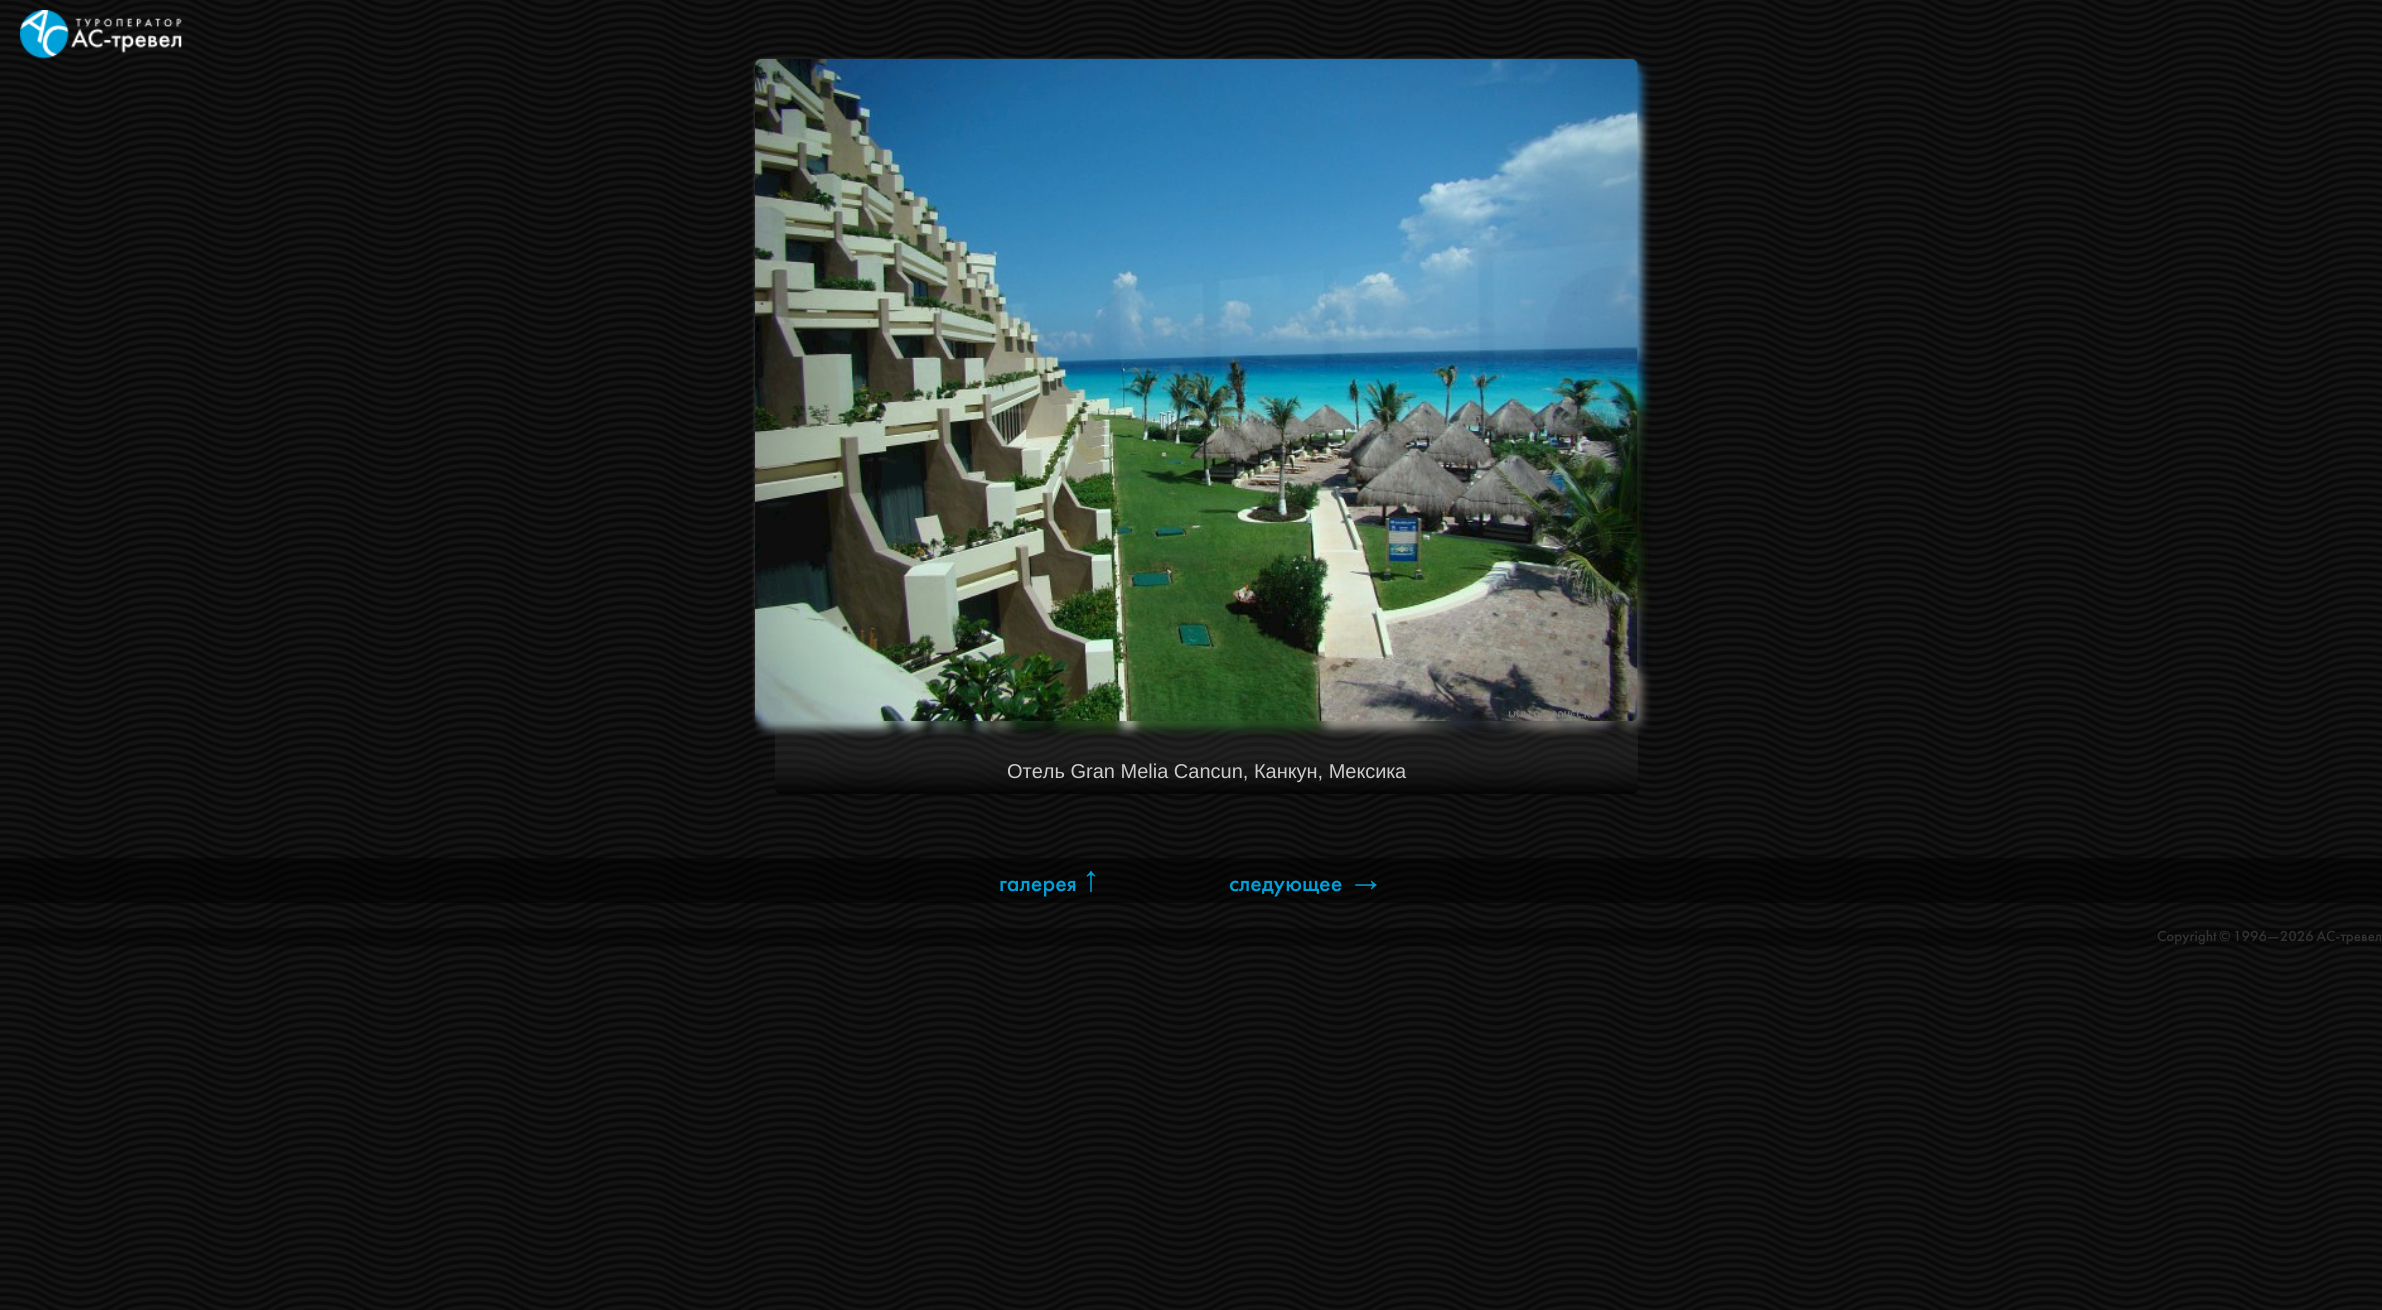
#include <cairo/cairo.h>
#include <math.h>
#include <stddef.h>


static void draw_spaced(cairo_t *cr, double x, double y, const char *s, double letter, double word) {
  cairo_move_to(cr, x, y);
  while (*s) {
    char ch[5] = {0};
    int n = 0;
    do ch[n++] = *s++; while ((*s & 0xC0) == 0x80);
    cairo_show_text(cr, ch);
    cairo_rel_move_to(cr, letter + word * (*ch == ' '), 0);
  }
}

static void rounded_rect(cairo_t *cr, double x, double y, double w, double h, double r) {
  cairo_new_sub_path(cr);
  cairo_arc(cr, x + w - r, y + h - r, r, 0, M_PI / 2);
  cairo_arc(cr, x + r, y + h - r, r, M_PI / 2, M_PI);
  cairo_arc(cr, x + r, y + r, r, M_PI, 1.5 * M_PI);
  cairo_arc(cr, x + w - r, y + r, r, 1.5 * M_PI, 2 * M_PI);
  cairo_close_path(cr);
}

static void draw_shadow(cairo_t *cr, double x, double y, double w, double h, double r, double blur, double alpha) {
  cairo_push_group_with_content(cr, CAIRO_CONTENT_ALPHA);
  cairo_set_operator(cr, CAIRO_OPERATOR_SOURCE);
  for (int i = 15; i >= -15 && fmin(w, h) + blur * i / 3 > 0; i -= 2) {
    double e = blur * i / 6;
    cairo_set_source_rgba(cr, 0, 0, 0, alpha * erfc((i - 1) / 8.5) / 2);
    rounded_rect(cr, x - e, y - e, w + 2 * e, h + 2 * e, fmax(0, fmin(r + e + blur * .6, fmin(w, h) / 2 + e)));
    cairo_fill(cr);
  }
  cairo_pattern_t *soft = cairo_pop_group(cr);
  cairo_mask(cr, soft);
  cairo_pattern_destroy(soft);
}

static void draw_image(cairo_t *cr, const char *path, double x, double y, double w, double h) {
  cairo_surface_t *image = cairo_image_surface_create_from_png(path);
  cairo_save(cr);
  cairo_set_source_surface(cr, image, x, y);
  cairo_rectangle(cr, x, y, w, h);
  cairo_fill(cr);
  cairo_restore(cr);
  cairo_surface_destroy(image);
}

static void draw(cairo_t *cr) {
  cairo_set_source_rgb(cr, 1, 1, 1);
  cairo_paint(cr);
  draw_image(cr, "images/1.png", 0, 0, 2382, 1310);
  draw_image(cr, "images/2.png", 20, 10, 162, 49);
  draw_shadow(cr, 755, 60, 883, 663, 6, 2, 0.25);
  draw_image(cr, "images/3.png", 755, 58, 896, 680);
  cairo_set_source_rgba(cr, 0, 0, 0, 0.5);
  cairo_rectangle(cr, 0, 858, 2382, 45);
  cairo_fill(cr);
  cairo_set_source_rgba(cr, 0, 0, 0, 0.33);
  cairo_rectangle(cr, 0, 928, 2382, 18);
  cairo_fill(cr);
  cairo_select_font_face(cr, "Liberation Sans", CAIRO_FONT_SLANT_NORMAL, CAIRO_FONT_WEIGHT_NORMAL);
  cairo_set_font_size(cr, 20);
  cairo_set_source_rgb(cr, 204 / 255.0, 204 / 255.0, 204 / 255.0);
  cairo_move_to(cr, 1007, 778);
  cairo_show_text(cr, "Отель Gran Melia Cancun, Канкун, Мексика");
  cairo_select_font_face(cr, "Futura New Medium", CAIRO_FONT_SLANT_NORMAL, CAIRO_FONT_WEIGHT_NORMAL);
  cairo_set_font_size(cr, 24);
  cairo_set_source_rgb(cr, 0, 160 / 255.0, 216 / 255.0);
  cairo_move_to(cr, 999, 891);
  cairo_show_text(cr, "галерея");
  cairo_select_font_face(cr, "Liberation Sans", CAIRO_FONT_SLANT_NORMAL, CAIRO_FONT_WEIGHT_BOLD);
  cairo_set_font_size(cr, 36);
  cairo_move_to(cr, 1082, 891);
  cairo_show_text(cr, "↑");
  cairo_select_font_face(cr, "Futura New Medium", CAIRO_FONT_SLANT_NORMAL, CAIRO_FONT_WEIGHT_NORMAL);
  cairo_set_font_size(cr, 24);
  cairo_move_to(cr, 1229, 891);
  cairo_show_text(cr, "следующее");
  cairo_select_font_face(cr, "Liberation Sans", CAIRO_FONT_SLANT_NORMAL, CAIRO_FONT_WEIGHT_BOLD);
  cairo_set_font_size(cr, 36);
  cairo_move_to(cr, 1348, 891);
  cairo_show_text(cr, "→");
  cairo_select_font_face(cr, "Futura New Medium", CAIRO_FONT_SLANT_NORMAL, CAIRO_FONT_WEIGHT_NORMAL);
  cairo_set_font_size(cr, 15);
  cairo_set_source_rgb(cr, 51 / 255.0, 51 / 255.0, 51 / 255.0);
  draw_spaced(cr, 2157, 941, "Copyright © 1996—2026 АС-тревел", 0, -1);
}

int main(void) {
  cairo_surface_t *surface = cairo_image_surface_create(CAIRO_FORMAT_RGB24, 2382, 1310);
  cairo_t *cr = cairo_create(surface);
  cairo_font_options_t *options = cairo_font_options_create();
  cairo_font_options_set_hint_metrics(options, CAIRO_HINT_METRICS_OFF);
  cairo_font_options_set_hint_style(options, CAIRO_HINT_STYLE_NONE);
  cairo_set_font_options(cr, options);
  cairo_set_miter_limit(cr, 4);
  draw(cr);
  cairo_surface_write_to_png(surface, "out.png");
  cairo_font_options_destroy(options);
  cairo_destroy(cr);
  cairo_surface_destroy(surface);
  return 0;
}
